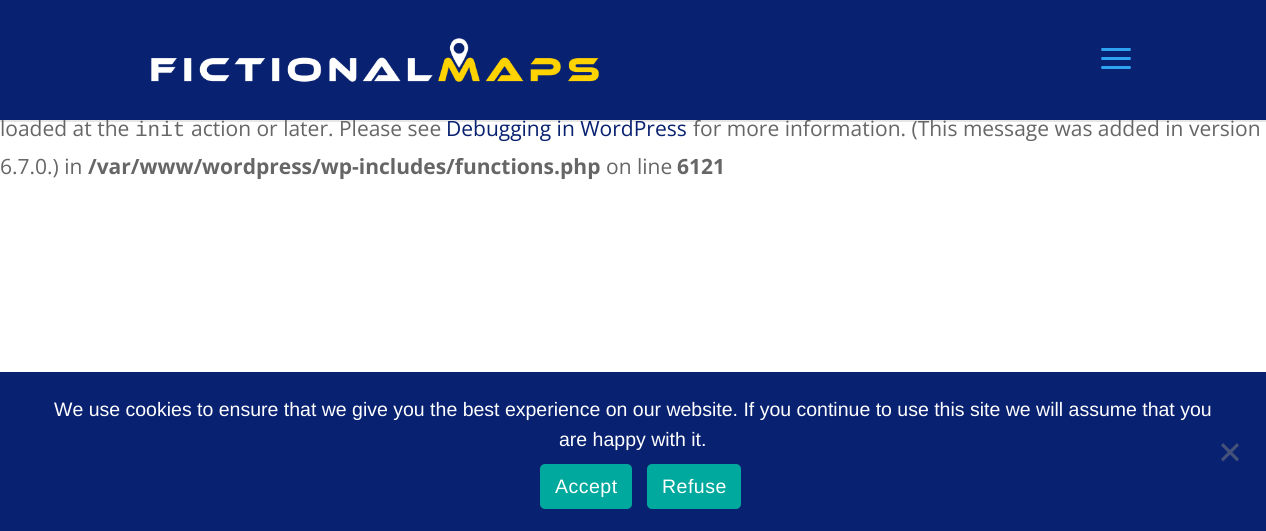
#include <cairo/cairo.h>
#include <math.h>
#include <stddef.h>


static void draw_spaced(cairo_t *cr, double x, double y, const char *s, double letter, double word) {
  cairo_move_to(cr, x, y);
  while (*s) {
    char ch[5] = {0};
    int n = 0;
    do ch[n++] = *s++; while ((*s & 0xC0) == 0x80);
    cairo_show_text(cr, ch);
    cairo_rel_move_to(cr, letter + word * (*ch == ' '), 0);
  }
}

static void rounded_rect(cairo_t *cr, double x, double y, double w, double h, double r) {
  cairo_new_sub_path(cr);
  cairo_arc(cr, x + w - r, y + h - r, r, 0, M_PI / 2);
  cairo_arc(cr, x + r, y + h - r, r, M_PI / 2, M_PI);
  cairo_arc(cr, x + r, y + r, r, M_PI, 1.5 * M_PI);
  cairo_arc(cr, x + w - r, y + r, r, 1.5 * M_PI, 2 * M_PI);
  cairo_close_path(cr);
}

static void draw_image(cairo_t *cr, const char *path, double x, double y, double w, double h) {
  cairo_surface_t *image = cairo_image_surface_create_from_png(path);
  cairo_save(cr);
  cairo_set_source_surface(cr, image, x, y);
  cairo_rectangle(cr, x, y, w, h);
  cairo_fill(cr);
  cairo_restore(cr);
  cairo_surface_destroy(image);
}

static void draw(cairo_t *cr) {
  cairo_set_source_rgb(cr, 1, 1, 1);
  cairo_paint(cr);
  cairo_set_source_rgba(cr, 0, 0, 0, 0.1);
  cairo_rectangle(cr, 0, 120, 1266, 2);
  cairo_fill(cr);
  cairo_set_source_rgb(cr, 8 / 255.0, 33 / 255.0, 112 / 255.0);
  cairo_rectangle(cr, 0, 372, 1266, 159);
  cairo_fill(cr);
  cairo_set_source_rgb(cr, 68 / 255.0, 81 / 255.0, 120 / 255.0);
  cairo_new_path(cr);
  cairo_move_to(cr, 1237, 443);
  cairo_line_to(cr, 1239, 445.5);
  cairo_line_to(cr, 1223, 461.5);
  cairo_line_to(cr, 1221, 459);
  cairo_close_path(cr);
  cairo_fill(cr);
  cairo_new_path(cr);
  cairo_move_to(cr, 1221, 445.5);
  cairo_line_to(cr, 1223, 443);
  cairo_line_to(cr, 1239, 459);
  cairo_line_to(cr, 1237, 461.5);
  cairo_close_path(cr);
  cairo_fill(cr);
  cairo_set_source_rgb(cr, 0, 169 / 255.0, 157 / 255.0);
  rounded_rect(cr, 540, 464, 92, 45, 5);
  cairo_fill(cr);
  rounded_rect(cr, 647, 464, 94, 45, 5);
  cairo_fill(cr);
  cairo_select_font_face(cr, "Open Sans", CAIRO_FONT_SLANT_NORMAL, CAIRO_FONT_WEIGHT_NORMAL);
  cairo_set_font_size(cr, 21);
  cairo_set_source_rgb(cr, 102 / 255.0, 102 / 255.0, 102 / 255.0);
  cairo_move_to(cr, 0, 136);
  cairo_show_text(cr, "loaded at the");
  cairo_select_font_face(cr, "Liberation Mono", CAIRO_FONT_SLANT_NORMAL, CAIRO_FONT_WEIGHT_NORMAL);
  cairo_move_to(cr, 135, 136);
  cairo_show_text(cr, "init");
  cairo_select_font_face(cr, "Open Sans", CAIRO_FONT_SLANT_NORMAL, CAIRO_FONT_WEIGHT_NORMAL);
  cairo_move_to(cr, 191, 136);
  cairo_show_text(cr, "action or later. Please see");
  cairo_set_source_rgb(cr, 8 / 255.0, 33 / 255.0, 112 / 255.0);
  cairo_move_to(cr, 446, 136);
  cairo_show_text(cr, "Debugging in WordPress");
  cairo_set_source_rgb(cr, 102 / 255.0, 102 / 255.0, 102 / 255.0);
  cairo_move_to(cr, 693, 136);
  cairo_show_text(cr, "for more information. (This message was added in version");
  cairo_set_source_rgb(cr, 8 / 255.0, 33 / 255.0, 112 / 255.0);
  cairo_rectangle(cr, 0, 0, 1266, 120);
  cairo_fill(cr);
  draw_image(cr, "images/2.png", 1101, 48, 30, 21);
  draw_image(cr, "images/1.png", 151, 38, 448, 44);
  cairo_set_source_rgb(cr, 102 / 255.0, 102 / 255.0, 102 / 255.0);
  cairo_move_to(cr, 0, 174);
  cairo_show_text(cr, "6.7.0.) in");
  cairo_select_font_face(cr, "Open Sans", CAIRO_FONT_SLANT_NORMAL, CAIRO_FONT_WEIGHT_BOLD);
  cairo_move_to(cr, 88, 174);
  cairo_show_text(cr, "/var/www/wordpress/wp-includes/functions.php");
  cairo_select_font_face(cr, "Open Sans", CAIRO_FONT_SLANT_NORMAL, CAIRO_FONT_WEIGHT_NORMAL);
  cairo_move_to(cr, 606, 174);
  cairo_show_text(cr, "on line");
  cairo_select_font_face(cr, "Open Sans", CAIRO_FONT_SLANT_NORMAL, CAIRO_FONT_WEIGHT_BOLD);
  cairo_move_to(cr, 677, 174);
  cairo_show_text(cr, "6121");
  cairo_select_font_face(cr, "Liberation Sans", CAIRO_FONT_SLANT_NORMAL, CAIRO_FONT_WEIGHT_NORMAL);
  cairo_set_font_size(cr, 19.5);
  cairo_set_source_rgb(cr, 1, 1, 1);
  cairo_move_to(cr, 54, 416);
  cairo_show_text(cr, "We use cookies to ensure that we give you the best experience on our website. If you continue to use this site we will assume that you");
  cairo_move_to(cr, 559, 446);
  cairo_show_text(cr, "are happy with it.");
  draw_spaced(cr, 555, 493, "Accept", 0.5, 0);
  draw_spaced(cr, 662, 493, "Refuse", 0.5, 0);
}

int main(void) {
  cairo_surface_t *surface = cairo_image_surface_create(CAIRO_FORMAT_RGB24, 1266, 531);
  cairo_t *cr = cairo_create(surface);
  cairo_font_options_t *options = cairo_font_options_create();
  cairo_font_options_set_hint_metrics(options, CAIRO_HINT_METRICS_OFF);
  cairo_font_options_set_hint_style(options, CAIRO_HINT_STYLE_NONE);
  cairo_set_font_options(cr, options);
  cairo_set_miter_limit(cr, 4);
  draw(cr);
  cairo_surface_write_to_png(surface, "out.png");
  cairo_font_options_destroy(options);
  cairo_destroy(cr);
  cairo_surface_destroy(surface);
  return 0;
}
